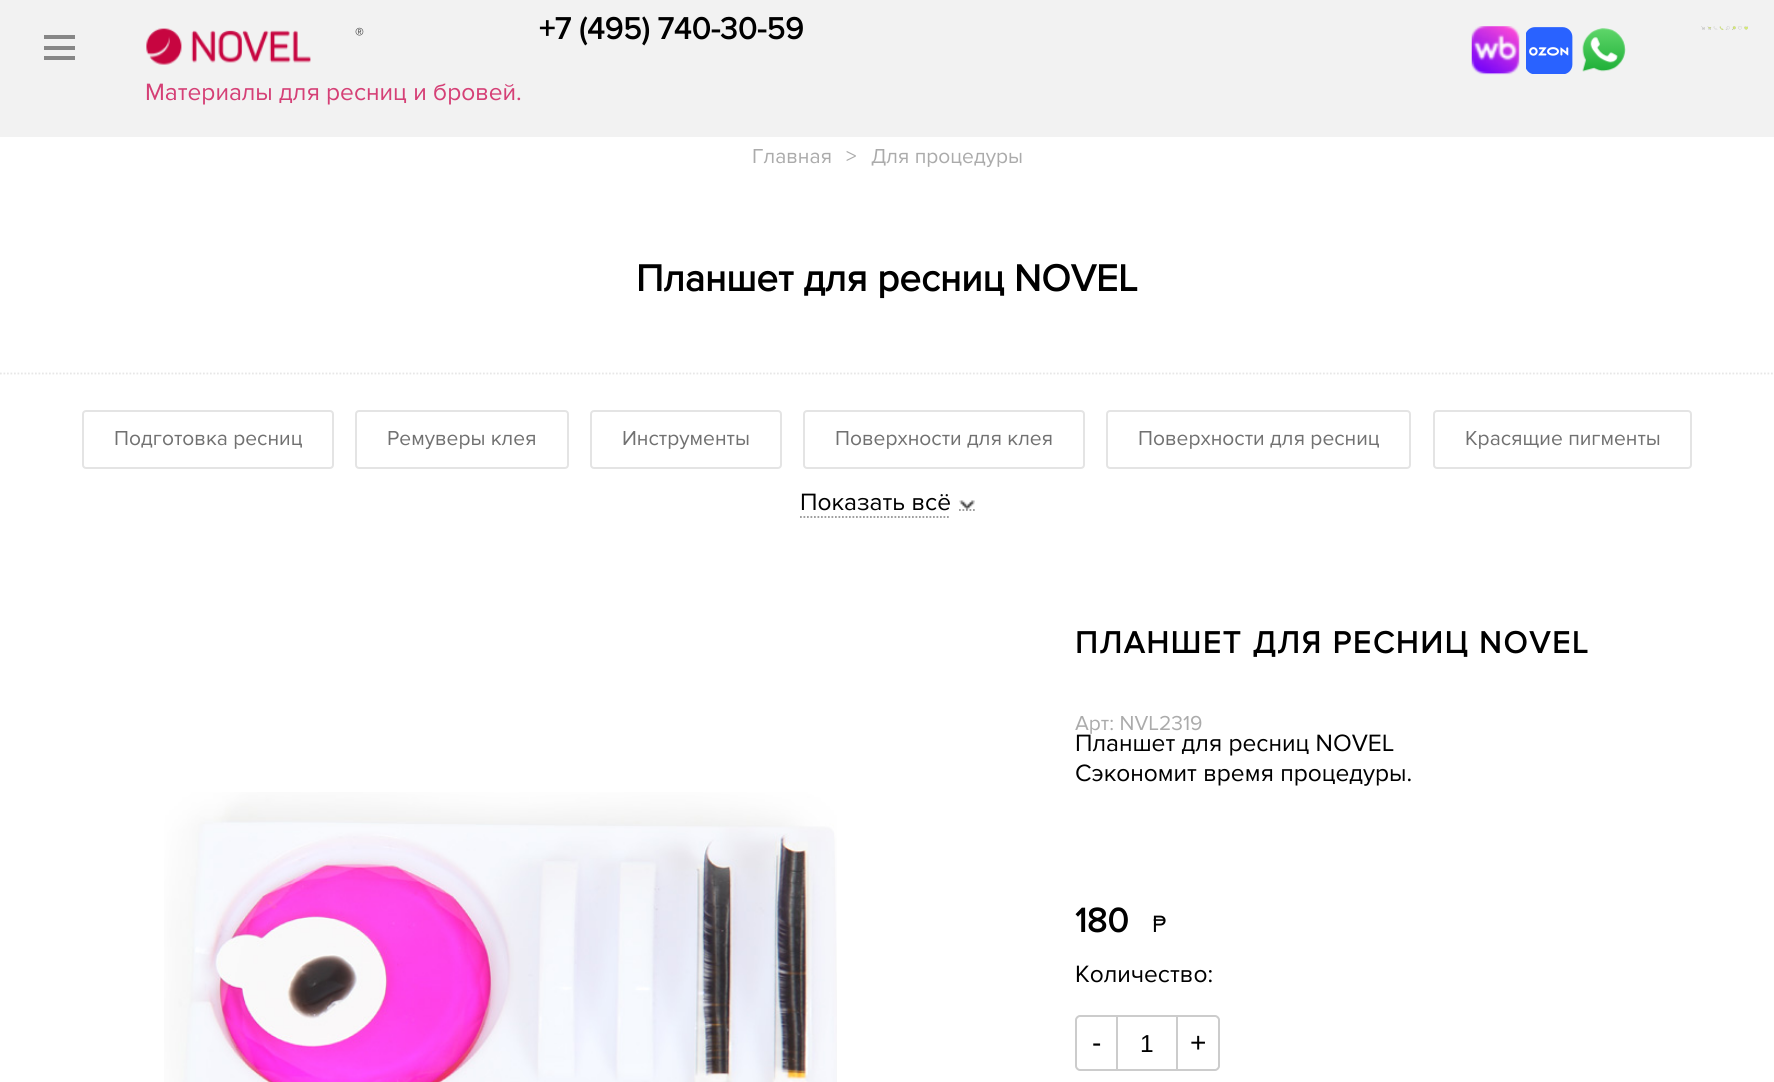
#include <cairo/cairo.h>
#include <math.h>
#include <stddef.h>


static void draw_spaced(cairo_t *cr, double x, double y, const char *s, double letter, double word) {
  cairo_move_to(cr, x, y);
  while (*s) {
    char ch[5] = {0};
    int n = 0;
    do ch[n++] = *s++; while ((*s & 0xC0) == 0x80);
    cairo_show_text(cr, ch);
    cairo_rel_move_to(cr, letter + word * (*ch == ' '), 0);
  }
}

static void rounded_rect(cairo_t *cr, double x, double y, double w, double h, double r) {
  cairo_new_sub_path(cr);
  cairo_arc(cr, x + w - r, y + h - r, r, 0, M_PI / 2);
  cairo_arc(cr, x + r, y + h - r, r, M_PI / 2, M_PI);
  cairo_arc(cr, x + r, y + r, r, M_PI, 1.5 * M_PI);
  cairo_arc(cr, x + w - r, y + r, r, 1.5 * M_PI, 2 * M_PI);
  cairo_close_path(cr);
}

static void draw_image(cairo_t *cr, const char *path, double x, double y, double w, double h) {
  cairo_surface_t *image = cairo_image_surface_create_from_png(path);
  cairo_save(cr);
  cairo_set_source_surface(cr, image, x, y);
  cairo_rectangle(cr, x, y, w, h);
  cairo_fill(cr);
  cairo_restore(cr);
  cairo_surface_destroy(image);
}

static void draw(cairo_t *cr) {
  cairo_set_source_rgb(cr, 1, 1, 1);
  cairo_paint(cr);
  cairo_set_source_rgb(cr, 242 / 255.0, 242 / 255.0, 242 / 255.0);
  cairo_rectangle(cr, 0, 0, 1774, 137);
  cairo_fill(cr);
  cairo_set_source_rgb(cr, 135 / 255.0, 135 / 255.0, 135 / 255.0);
  cairo_rectangle(cr, 44, 35, 31, 4);
  cairo_fill(cr);
  cairo_rectangle(cr, 44, 46, 31, 4);
  cairo_fill(cr);
  cairo_rectangle(cr, 44, 56, 31, 4);
  cairo_fill(cr);
  draw_image(cr, "images/1.png", 146, 28, 165, 37);
  draw_image(cr, "images/2.png", 1471, 26, 49, 49);
  draw_image(cr, "images/3.png", 1526, 27, 47, 47);
  draw_image(cr, "images/4.png", 1582, 28, 44, 44);
  draw_image(cr, "images/5.png", 1701, 26, 47, 4);
  cairo_new_path(cr);
  cairo_move_to(cr, 0, 373.5);
  cairo_line_to(cr, 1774.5, 373.5);
  cairo_set_source_rgb(cr, 231 / 255.0, 231 / 255.0, 231 / 255.0);
  cairo_set_line_width(cr, 1.8);
  cairo_set_dash(cr, (double[]){1.75, 1.75}, 2, 0);
  cairo_stroke(cr);
  rounded_rect(cr, 83, 411, 250, 57, 3);
  cairo_set_source_rgb(cr, 228 / 255.0, 228 / 255.0, 228 / 255.0);
  cairo_set_line_width(cr, 2);
  cairo_set_dash(cr, NULL, 0, 0);
  cairo_stroke(cr);
  rounded_rect(cr, 356, 411, 212, 57, 3);
  cairo_stroke(cr);
  rounded_rect(cr, 591, 411, 190, 57, 3);
  cairo_stroke(cr);
  rounded_rect(cr, 804, 411, 280, 57, 3);
  cairo_stroke(cr);
  rounded_rect(cr, 1107, 411, 303, 57, 3);
  cairo_stroke(cr);
  rounded_rect(cr, 1434, 411, 257, 57, 3);
  cairo_stroke(cr);
  cairo_new_path(cr);
  cairo_move_to(cr, 800, 517);
  cairo_line_to(cr, 950, 517);
  cairo_set_source_rgb(cr, 149 / 255.0, 149 / 255.0, 149 / 255.0);
  cairo_set_line_width(cr, 1.8);
  cairo_set_dash(cr, (double[]){1.75, 1.75}, 2, 0);
  cairo_stroke(cr);
  cairo_new_path(cr);
  cairo_move_to(cr, 959, 510);
  cairo_line_to(cr, 975, 510);
  cairo_stroke(cr);
  draw_image(cr, "images/6.png", 959, 500, 16, 10);
  draw_image(cr, "images/7.png", 164, 792, 673, 290);
  cairo_new_path(cr);
  cairo_move_to(cr, 1080, 1016);
  cairo_line_to(cr, 1117, 1016);
  cairo_line_to(cr, 1117, 1070);
  cairo_line_to(cr, 1080, 1070);
  cairo_curve_to(cr, 1078, 1070, 1076, 1068, 1076, 1066);
  cairo_line_to(cr, 1076, 1020);
  cairo_curve_to(cr, 1076, 1018, 1078, 1016, 1080, 1016);
  cairo_close_path(cr);
  cairo_set_source_rgb(cr, 204 / 255.0, 204 / 255.0, 204 / 255.0);
  cairo_set_line_width(cr, 2);
  cairo_set_dash(cr, NULL, 0, 0);
  cairo_stroke(cr);
  cairo_rectangle(cr, 1118, 1015, 58, 2);
  cairo_fill(cr);
  cairo_rectangle(cr, 1118, 1069, 58, 2);
  cairo_fill(cr);
  cairo_new_path(cr);
  cairo_move_to(cr, 1177, 1016);
  cairo_line_to(cr, 1215, 1016);
  cairo_curve_to(cr, 1217, 1016, 1219, 1018, 1219, 1020);
  cairo_line_to(cr, 1219, 1066);
  cairo_curve_to(cr, 1219, 1068, 1217, 1070, 1215, 1070);
  cairo_line_to(cr, 1177, 1070);
  cairo_close_path(cr);
  cairo_stroke(cr);
  cairo_select_font_face(cr, "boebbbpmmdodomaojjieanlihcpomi", CAIRO_FONT_SLANT_NORMAL, CAIRO_FONT_WEIGHT_NORMAL);
  cairo_set_font_size(cr, 18);
  cairo_set_source_rgb(cr, 59 / 255.0, 59 / 255.0, 59 / 255.0);
  cairo_move_to(cr, 355, 40);
  cairo_show_text(cr, "®");
  cairo_set_font_size(cr, 24.5);
  cairo_set_source_rgb(cr, 213 / 255.0, 64 / 255.0, 118 / 255.0);
  cairo_move_to(cr, 145, 100);
  cairo_show_text(cr, "Материалы для ресниц и бровей.");
  cairo_select_font_face(cr, "boebbbpmmdodomaojjieanlihcpomi", CAIRO_FONT_SLANT_NORMAL, CAIRO_FONT_WEIGHT_BOLD);
  cairo_set_font_size(cr, 31.5);
  cairo_set_source_rgb(cr, 0, 0, 0);
  cairo_move_to(cr, 539, 39);
  cairo_show_text(cr, "+7 (495) 740-30-59");
  cairo_select_font_face(cr, "boebbbpmmdodomaojjieanlihcpomi", CAIRO_FONT_SLANT_NORMAL, CAIRO_FONT_WEIGHT_NORMAL);
  cairo_set_font_size(cr, 21);
  cairo_set_source_rgb(cr, 171 / 255.0, 171 / 255.0, 171 / 255.0);
  cairo_move_to(cr, 752, 163);
  cairo_show_text(cr, "Главная");
  cairo_move_to(cr, 846, 163);
  cairo_show_text(cr, ">");
  cairo_move_to(cr, 871, 163);
  cairo_show_text(cr, "Для процедуры");
  cairo_select_font_face(cr, "boebbbpmmdodomaojjieanlihcpomi", CAIRO_FONT_SLANT_NORMAL, CAIRO_FONT_WEIGHT_BOLD);
  cairo_set_font_size(cr, 38.5);
  cairo_set_source_rgb(cr, 0, 0, 0);
  cairo_move_to(cr, 636, 291);
  cairo_show_text(cr, "Планшет для ресниц NOVEL");
  cairo_select_font_face(cr, "boebbbpmmdodomaojjieanlihcpomi", CAIRO_FONT_SLANT_NORMAL, CAIRO_FONT_WEIGHT_NORMAL);
  cairo_set_font_size(cr, 21);
  cairo_set_source_rgb(cr, 113 / 255.0, 113 / 255.0, 113 / 255.0);
  cairo_move_to(cr, 114, 445);
  cairo_show_text(cr, "Подготовка ресниц");
  cairo_move_to(cr, 387, 445);
  cairo_show_text(cr, "Ремуверы клея");
  cairo_move_to(cr, 622, 445);
  cairo_show_text(cr, "Инструменты");
  cairo_move_to(cr, 835, 445);
  cairo_show_text(cr, "Поверхности для клея");
  cairo_move_to(cr, 1138, 445);
  cairo_show_text(cr, "Поверхности для ресниц");
  cairo_move_to(cr, 1465, 445);
  cairo_show_text(cr, "Красящие пигменты");
  cairo_set_font_size(cr, 24.5);
  cairo_set_source_rgb(cr, 0, 0, 0);
  cairo_move_to(cr, 800, 510);
  cairo_show_text(cr, "Показать всё");
  cairo_select_font_face(cr, "boebbbpmmdodomaojjieanlihcpomi", CAIRO_FONT_SLANT_NORMAL, CAIRO_FONT_WEIGHT_BOLD);
  cairo_set_font_size(cr, 31.5);
  draw_spaced(cr, 1075, 653, "ПЛАНШЕТ ДЛЯ РЕСНИЦ NOVEL", 1.9, 0);
  cairo_select_font_face(cr, "boebbbpmmdodomaojjieanlihcpomi", CAIRO_FONT_SLANT_NORMAL, CAIRO_FONT_WEIGHT_NORMAL);
  cairo_set_font_size(cr, 21);
  cairo_set_source_rgb(cr, 171 / 255.0, 171 / 255.0, 171 / 255.0);
  cairo_move_to(cr, 1075, 730);
  cairo_show_text(cr, "Арт: NVL2319");
  cairo_set_font_size(cr, 24.5);
  cairo_set_source_rgb(cr, 0, 0, 0);
  cairo_move_to(cr, 1075, 751);
  cairo_show_text(cr, "Планшет для ресниц NOVEL");
  cairo_move_to(cr, 1075, 781);
  cairo_show_text(cr, "Сэкономит время процедуры.");
  cairo_select_font_face(cr, "boebbbpmmdodomaojjieanlihcpomi", CAIRO_FONT_SLANT_NORMAL, CAIRO_FONT_WEIGHT_BOLD);
  cairo_set_font_size(cr, 35);
  cairo_move_to(cr, 1075, 932);
  cairo_show_text(cr, "180");
  cairo_select_font_face(cr, "boebbbpmmdodomaojjieanlihcpomi", CAIRO_FONT_SLANT_NORMAL, CAIRO_FONT_WEIGHT_NORMAL);
  cairo_set_font_size(cr, 24.5);
  cairo_move_to(cr, 1152, 932);
  cairo_show_text(cr, "Р");
  cairo_save(cr);
  cairo_rectangle(cr, 1153, 901, 11, 25);
  cairo_clip(cr);
  cairo_move_to(cr, 1153, 926);
  cairo_show_text(cr, "–");
  cairo_restore(cr);
  cairo_move_to(cr, 1075, 982);
  cairo_show_text(cr, "Количество:");
  cairo_select_font_face(cr, "Liberation Sans", CAIRO_FONT_SLANT_NORMAL, CAIRO_FONT_WEIGHT_NORMAL);
  cairo_set_font_size(cr, 28);
  cairo_move_to(cr, 1092, 1052);
  cairo_show_text(cr, "-");
  cairo_set_font_size(cr, 24.5);
  cairo_move_to(cr, 1140, 1052);
  cairo_show_text(cr, "1");
  cairo_set_font_size(cr, 28);
  cairo_move_to(cr, 1190, 1052);
  cairo_show_text(cr, "+");
}

int main(void) {
  cairo_surface_t *surface = cairo_image_surface_create(CAIRO_FORMAT_RGB24, 1774, 1082);
  cairo_t *cr = cairo_create(surface);
  cairo_font_options_t *options = cairo_font_options_create();
  cairo_font_options_set_hint_metrics(options, CAIRO_HINT_METRICS_OFF);
  cairo_font_options_set_hint_style(options, CAIRO_HINT_STYLE_NONE);
  cairo_set_font_options(cr, options);
  cairo_set_miter_limit(cr, 4);
  draw(cr);
  cairo_surface_write_to_png(surface, "out.png");
  cairo_font_options_destroy(options);
  cairo_destroy(cr);
  cairo_surface_destroy(surface);
  return 0;
}
